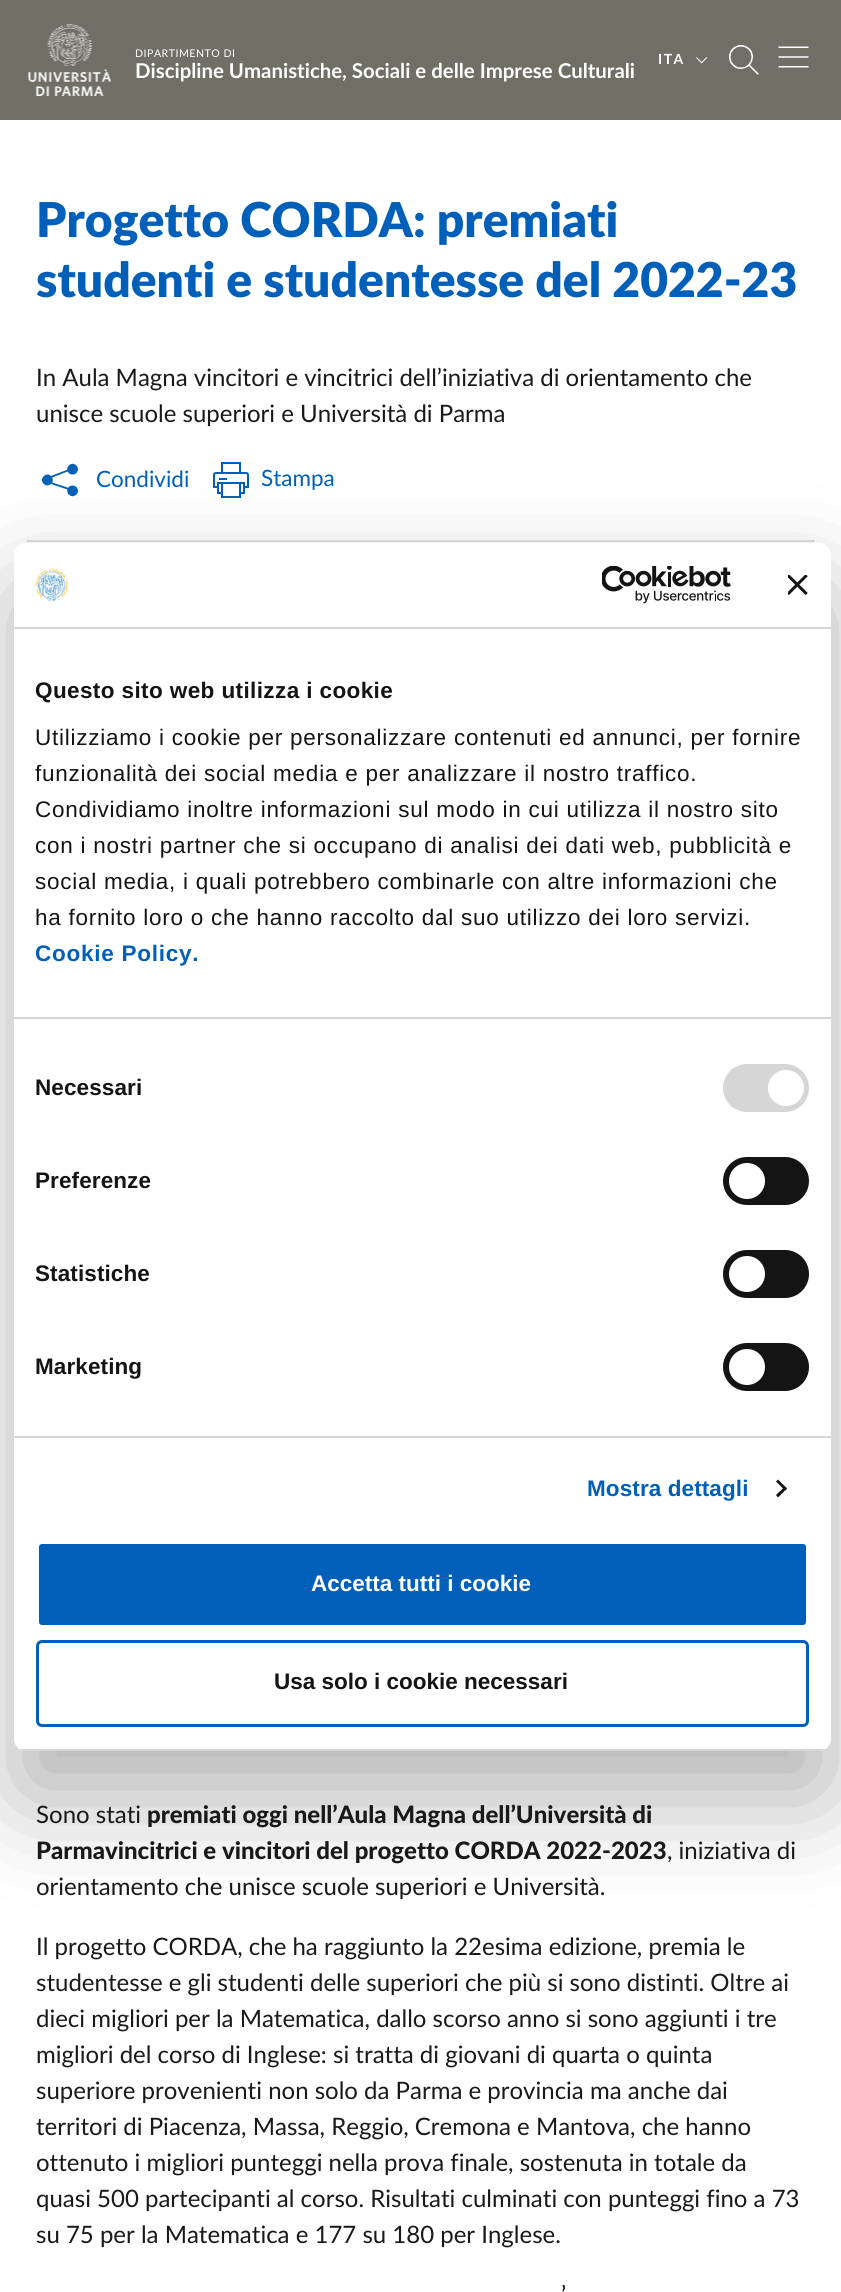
#include <cairo/cairo.h>
#include <math.h>
#include <stddef.h>


static void draw_spaced(cairo_t *cr, double x, double y, const char *s, double letter, double word) {
  cairo_move_to(cr, x, y);
  while (*s) {
    char ch[5] = {0};
    int n = 0;
    do ch[n++] = *s++; while ((*s & 0xC0) == 0x80);
    cairo_show_text(cr, ch);
    cairo_rel_move_to(cr, letter + word * (*ch == ' '), 0);
  }
}

static void rounded_rect(cairo_t *cr, double x, double y, double w, double h, double r) {
  cairo_new_sub_path(cr);
  cairo_arc(cr, x + w - r, y + h - r, r, 0, M_PI / 2);
  cairo_arc(cr, x + r, y + h - r, r, M_PI / 2, M_PI);
  cairo_arc(cr, x + r, y + r, r, M_PI, 1.5 * M_PI);
  cairo_arc(cr, x + w - r, y + r, r, 1.5 * M_PI, 2 * M_PI);
  cairo_close_path(cr);
}

static void draw_shadow(cairo_t *cr, double x, double y, double w, double h, double r, double blur, double alpha) {
  cairo_push_group_with_content(cr, CAIRO_CONTENT_ALPHA);
  cairo_set_operator(cr, CAIRO_OPERATOR_SOURCE);
  for (int i = 15; i >= -15 && fmin(w, h) + blur * i / 3 > 0; i -= 2) {
    double e = blur * i / 6;
    cairo_set_source_rgba(cr, 0, 0, 0, alpha * erfc((i - 1) / 8.5) / 2);
    rounded_rect(cr, x - e, y - e, w + 2 * e, h + 2 * e, fmax(0, fmin(r + e + blur * .6, fmin(w, h) / 2 + e)));
    cairo_fill(cr);
  }
  cairo_pattern_t *soft = cairo_pop_group(cr);
  cairo_mask(cr, soft);
  cairo_pattern_destroy(soft);
}

static void draw_image(cairo_t *cr, const char *path, double x, double y, double w, double h) {
  cairo_surface_t *image = cairo_image_surface_create_from_png(path);
  cairo_save(cr);
  cairo_set_source_surface(cr, image, x, y);
  cairo_rectangle(cr, x, y, w, h);
  cairo_fill(cr);
  cairo_restore(cr);
  cairo_surface_destroy(image);
}

static void draw(cairo_t *cr) {
  cairo_set_source_rgb(cr, 1, 1, 1);
  cairo_paint(cr);
  cairo_set_source_rgb(cr, 112 / 255.0, 111 / 255.0, 102 / 255.0);
  cairo_rectangle(cr, 0, 0, 841, 120);
  cairo_fill(cr);
  draw_image(cr, "images/1.png", 28, 24, 84, 72);
  draw_image(cr, "images/2.png", 696, 57, 12, 7);
  draw_image(cr, "images/3.png", 729, 45, 30, 30);
  draw_image(cr, "images/4.png", 778, 46, 31, 22);
  draw_image(cr, "images/5.png", 42, 463, 36, 34);
  draw_image(cr, "images/6.png", 213, 462, 36, 36);
  cairo_set_source_rgb(cr, 222 / 255.0, 222 / 255.0, 222 / 255.0);
  cairo_rectangle(cr, 27, 540, 788, 2);
  cairo_fill(cr);
  cairo_set_source_rgb(cr, 0, 0, 0);
  draw_shadow(cr, 14, 591, 817, 1208, 12, 51, 0.3);
  cairo_set_source_rgb(cr, 1, 1, 1);
  rounded_rect(cr, 14, 543, 817, 1208, 12);
  cairo_fill(cr);
  cairo_set_source_rgb(cr, 214 / 255.0, 214 / 255.0, 214 / 255.0);
  cairo_rectangle(cr, 14, 627, 817, 2);
  cairo_fill(cr);
  draw_image(cr, "images/7.png", 35, 568, 33, 33);
  draw_image(cr, "images/8.png", 602, 566, 129, 38);
  draw_image(cr, "images/9.png", 788, 575, 20, 20);
  cairo_rectangle(cr, 14, 1017, 817, 2);
  cairo_fill(cr);
  cairo_rectangle(cr, 14, 1436, 817, 2);
  cairo_fill(cr);
  rounded_rect(cr, 723, 1064, 86, 48, 24);
  cairo_fill(cr);
  cairo_set_source_rgb(cr, 1, 1, 1);
  cairo_arc(cr, 786, 1088, 18, 0, 2 * M_PI);
  cairo_fill(cr);
  cairo_set_source_rgb(cr, 20 / 255.0, 20 / 255.0, 20 / 255.0);
  rounded_rect(cr, 723, 1157, 86, 48, 24);
  cairo_fill(cr);
  cairo_set_source_rgb(cr, 1, 1, 1);
  cairo_arc(cr, 747, 1181, 18, 0, 2 * M_PI);
  cairo_fill(cr);
  cairo_set_source_rgb(cr, 20 / 255.0, 20 / 255.0, 20 / 255.0);
  rounded_rect(cr, 723, 1250, 86, 48, 24);
  cairo_fill(cr);
  cairo_set_source_rgb(cr, 1, 1, 1);
  cairo_arc(cr, 747, 1274, 18, 0, 2 * M_PI);
  cairo_fill(cr);
  cairo_set_source_rgb(cr, 20 / 255.0, 20 / 255.0, 20 / 255.0);
  rounded_rect(cr, 723, 1343, 86, 48, 24);
  cairo_fill(cr);
  cairo_set_source_rgb(cr, 1, 1, 1);
  cairo_arc(cr, 747, 1367, 18, 0, 2 * M_PI);
  cairo_fill(cr);
  cairo_set_source_rgb(cr, 20 / 255.0, 20 / 255.0, 20 / 255.0);
  cairo_new_path(cr);
  cairo_move_to(cr, 778, 1479.5);
  cairo_line_to(cr, 787, 1488.5);
  cairo_line_to(cr, 785, 1490.5);
  cairo_line_to(cr, 776, 1481.5);
  cairo_close_path(cr);
  cairo_fill(cr);
  cairo_new_path(cr);
  cairo_move_to(cr, 785, 1486.5);
  cairo_line_to(cr, 787, 1488.5);
  cairo_line_to(cr, 778, 1497.5);
  cairo_line_to(cr, 776, 1495);
  cairo_close_path(cr);
  cairo_fill(cr);
  cairo_save(cr);
  rounded_rect(cr, 14, 543, 817, 1208, 12);
  cairo_clip(cr);
  cairo_set_source_rgb(cr, 214 / 255.0, 214 / 255.0, 214 / 255.0);
  cairo_rectangle(cr, 14, 1749, 817, 2);
  cairo_fill(cr);
  cairo_restore(cr);
  cairo_set_source_rgb(cr, 0, 95 / 255.0, 184 / 255.0);
  rounded_rect(cr, 37.5, 1542.5, 770, 84, 4.5);
  cairo_fill_preserve(cr);
  cairo_set_source_rgb(cr, 1, 1, 1);
  cairo_set_line_width(cr, 3);
  cairo_stroke(cr);
  rounded_rect(cr, 37.5, 1641.5, 770, 84, 4.5);
  cairo_set_source_rgb(cr, 0, 95 / 255.0, 184 / 255.0);
  cairo_stroke(cr);
  cairo_select_font_face(cr, "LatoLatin", CAIRO_FONT_SLANT_NORMAL, CAIRO_FONT_WEIGHT_NORMAL);
  cairo_set_font_size(cr, 10.6);
  cairo_set_source_rgb(cr, 1, 1, 1);
  draw_spaced(cr, 135, 57, "DIPARTIMENTO DI", 0.5, 0);
  cairo_select_font_face(cr, "LatoLatin", CAIRO_FONT_SLANT_NORMAL, CAIRO_FONT_WEIGHT_BOLD);
  cairo_set_font_size(cr, 20.4);
  cairo_move_to(cr, 135, 78);
  cairo_show_text(cr, "Discipline Umanistiche, Sociali e delle Imprese Culturali");
  cairo_set_font_size(cr, 14);
  draw_spaced(cr, 658, 64, "ITA", 1.5, 0);
  cairo_select_font_face(cr, "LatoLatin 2 Black", CAIRO_FONT_SLANT_NORMAL, CAIRO_FONT_WEIGHT_NORMAL);
  cairo_set_font_size(cr, 48);
  cairo_set_source_rgb(cr, 0, 95 / 255.0, 184 / 255.0);
  cairo_move_to(cr, 36, 237);
  cairo_show_text(cr, "Progetto CORDA: premiati");
  cairo_move_to(cr, 36, 297);
  cairo_show_text(cr, "studenti e studentesse del 2022-23");
  cairo_select_font_face(cr, "LatoLatin", CAIRO_FONT_SLANT_NORMAL, CAIRO_FONT_WEIGHT_NORMAL);
  cairo_set_font_size(cr, 24);
  cairo_set_source_rgb(cr, 25 / 255.0, 25 / 255.0, 26 / 255.0);
  cairo_move_to(cr, 36, 386);
  cairo_show_text(cr, "In Aula Magna vincitori e vincitrici dell’iniziativa di orientamento che");
  cairo_move_to(cr, 36, 422);
  cairo_show_text(cr, "unisce scuole superiori e Università di Parma");
  cairo_set_font_size(cr, 22.5);
  cairo_set_source_rgb(cr, 0, 95 / 255.0, 184 / 255.0);
  cairo_move_to(cr, 96, 487);
  cairo_show_text(cr, "Condividi");
  cairo_move_to(cr, 261, 486);
  cairo_show_text(cr, "Stampa");
  cairo_set_font_size(cr, 24);
  cairo_set_source_rgb(cr, 25 / 255.0, 25 / 255.0, 26 / 255.0);
  cairo_move_to(cr, 36, 1823);
  cairo_show_text(cr, "Sono stati");
  cairo_select_font_face(cr, "LatoLatin Black", CAIRO_FONT_SLANT_NORMAL, CAIRO_FONT_WEIGHT_NORMAL);
  cairo_move_to(cr, 147, 1823);
  cairo_show_text(cr, "premiati oggi nell’Aula Magna dell’Università di");
  cairo_move_to(cr, 36, 1859);
  cairo_show_text(cr, "Parmavincitrici e vincitori del progetto CORDA 2022-2023");
  cairo_select_font_face(cr, "LatoLatin", CAIRO_FONT_SLANT_NORMAL, CAIRO_FONT_WEIGHT_NORMAL);
  cairo_move_to(cr, 667, 1859);
  cairo_show_text(cr, ", iniziativa di");
  cairo_move_to(cr, 36, 1895);
  cairo_show_text(cr, "orientamento che unisce scuole superiori e Università.");
  cairo_move_to(cr, 36, 1955);
  cairo_show_text(cr, "Il progetto CORDA, che ha raggiunto la 22esima edizione, premia le");
  cairo_move_to(cr, 36, 1991);
  cairo_show_text(cr, "studentesse e gli studenti delle superiori che più si sono distinti. Oltre ai");
  cairo_move_to(cr, 36, 2027);
  cairo_show_text(cr, "dieci migliori per la Matematica, dallo scorso anno si sono aggiunti i tre");
  cairo_move_to(cr, 36, 2063);
  cairo_show_text(cr, "migliori del corso di Inglese: si tratta di giovani di quarta o quinta");
  cairo_move_to(cr, 36, 2099);
  cairo_show_text(cr, "superiore provenienti non solo da Parma e provincia ma anche dai");
  cairo_move_to(cr, 36, 2135);
  cairo_show_text(cr, "territori di Piacenza, Massa, Reggio, Cremona e Mantova, che hanno");
  cairo_move_to(cr, 36, 2171);
  cairo_show_text(cr, "ottenuto i migliori punteggi nella prova finale, sostenuta in totale da");
  cairo_move_to(cr, 36, 2207);
  cairo_show_text(cr, "quasi 500 partecipanti al corso. Risultati culminati con punteggi fino a 73");
  cairo_move_to(cr, 36, 2243);
  cairo_show_text(cr, "su 75 per la Matematica e 177 su 180 per Inglese.");
  cairo_move_to(cr, 561, 2303);
  cairo_show_text(cr, "’");
  cairo_select_font_face(cr, "Liberation Sans", CAIRO_FONT_SLANT_NORMAL, CAIRO_FONT_WEIGHT_BOLD);
  cairo_set_font_size(cr, 22.5);
  cairo_set_source_rgb(cr, 20 / 255.0, 20 / 255.0, 20 / 255.0);
  draw_spaced(cr, 35, 698, "Questo sito web utilizza i cookie", 0.4, 0);
  cairo_select_font_face(cr, "Liberation Sans", CAIRO_FONT_SLANT_NORMAL, CAIRO_FONT_WEIGHT_NORMAL);
  draw_spaced(cr, 35, 745, "Utilizziamo i cookie per personalizzare contenuti ed annunci, per fornire", 0.75, 0);
  draw_spaced(cr, 35, 781, "funzionalità dei social media e per analizzare il nostro traffico.", 0.75, 0);
  draw_spaced(cr, 35, 817, "Condividiamo inoltre informazioni sul modo in cui utilizza il nostro sito", 0.75, 0);
  draw_spaced(cr, 35, 853, "con i nostri partner che si occupano di analisi dei dati web, pubblicità e", 0.75, 0);
  draw_spaced(cr, 35, 889, "social media, i quali potrebbero combinarle con altre informazioni che", 0.75, 0);
  draw_spaced(cr, 35, 925, "ha fornito loro o che hanno raccolto dal suo utilizzo dei loro servizi.", 0.75, 0);
  cairo_select_font_face(cr, "Liberation Sans", CAIRO_FONT_SLANT_NORMAL, CAIRO_FONT_WEIGHT_BOLD);
  cairo_set_source_rgb(cr, 0, 95 / 255.0, 184 / 255.0);
  draw_spaced(cr, 35, 961, "Cookie Policy.", 0.75, 0);
  cairo_set_source_rgb(cr, 20 / 255.0, 20 / 255.0, 20 / 255.0);
  draw_spaced(cr, 35, 1095, "Necessari", 0.1, 0);
  draw_spaced(cr, 35, 1188, "Preferenze", 0.1, 0);
  draw_spaced(cr, 35, 1281, "Statistiche", 0.1, 0);
  draw_spaced(cr, 35, 1374, "Marketing", 0.1, 0);
  cairo_set_source_rgb(cr, 0, 95 / 255.0, 184 / 255.0);
  draw_spaced(cr, 587, 1496, "Mostra dettagli", 0.1, 0);
  cairo_set_source_rgb(cr, 1, 1, 1);
  cairo_move_to(cr, 311, 1591);
  cairo_show_text(cr, "Accetta tutti i cookie");
  cairo_set_source_rgb(cr, 20 / 255.0, 20 / 255.0, 20 / 255.0);
  cairo_move_to(cr, 274, 1689);
  cairo_show_text(cr, "Usa solo i cookie necessari");
}

int main(void) {
  cairo_surface_t *surface = cairo_image_surface_create(CAIRO_FORMAT_RGB24, 841, 2292);
  cairo_t *cr = cairo_create(surface);
  cairo_font_options_t *options = cairo_font_options_create();
  cairo_font_options_set_hint_metrics(options, CAIRO_HINT_METRICS_OFF);
  cairo_font_options_set_hint_style(options, CAIRO_HINT_STYLE_NONE);
  cairo_set_font_options(cr, options);
  cairo_set_miter_limit(cr, 4);
  draw(cr);
  cairo_surface_write_to_png(surface, "out.png");
  cairo_font_options_destroy(options);
  cairo_destroy(cr);
  cairo_surface_destroy(surface);
  return 0;
}
